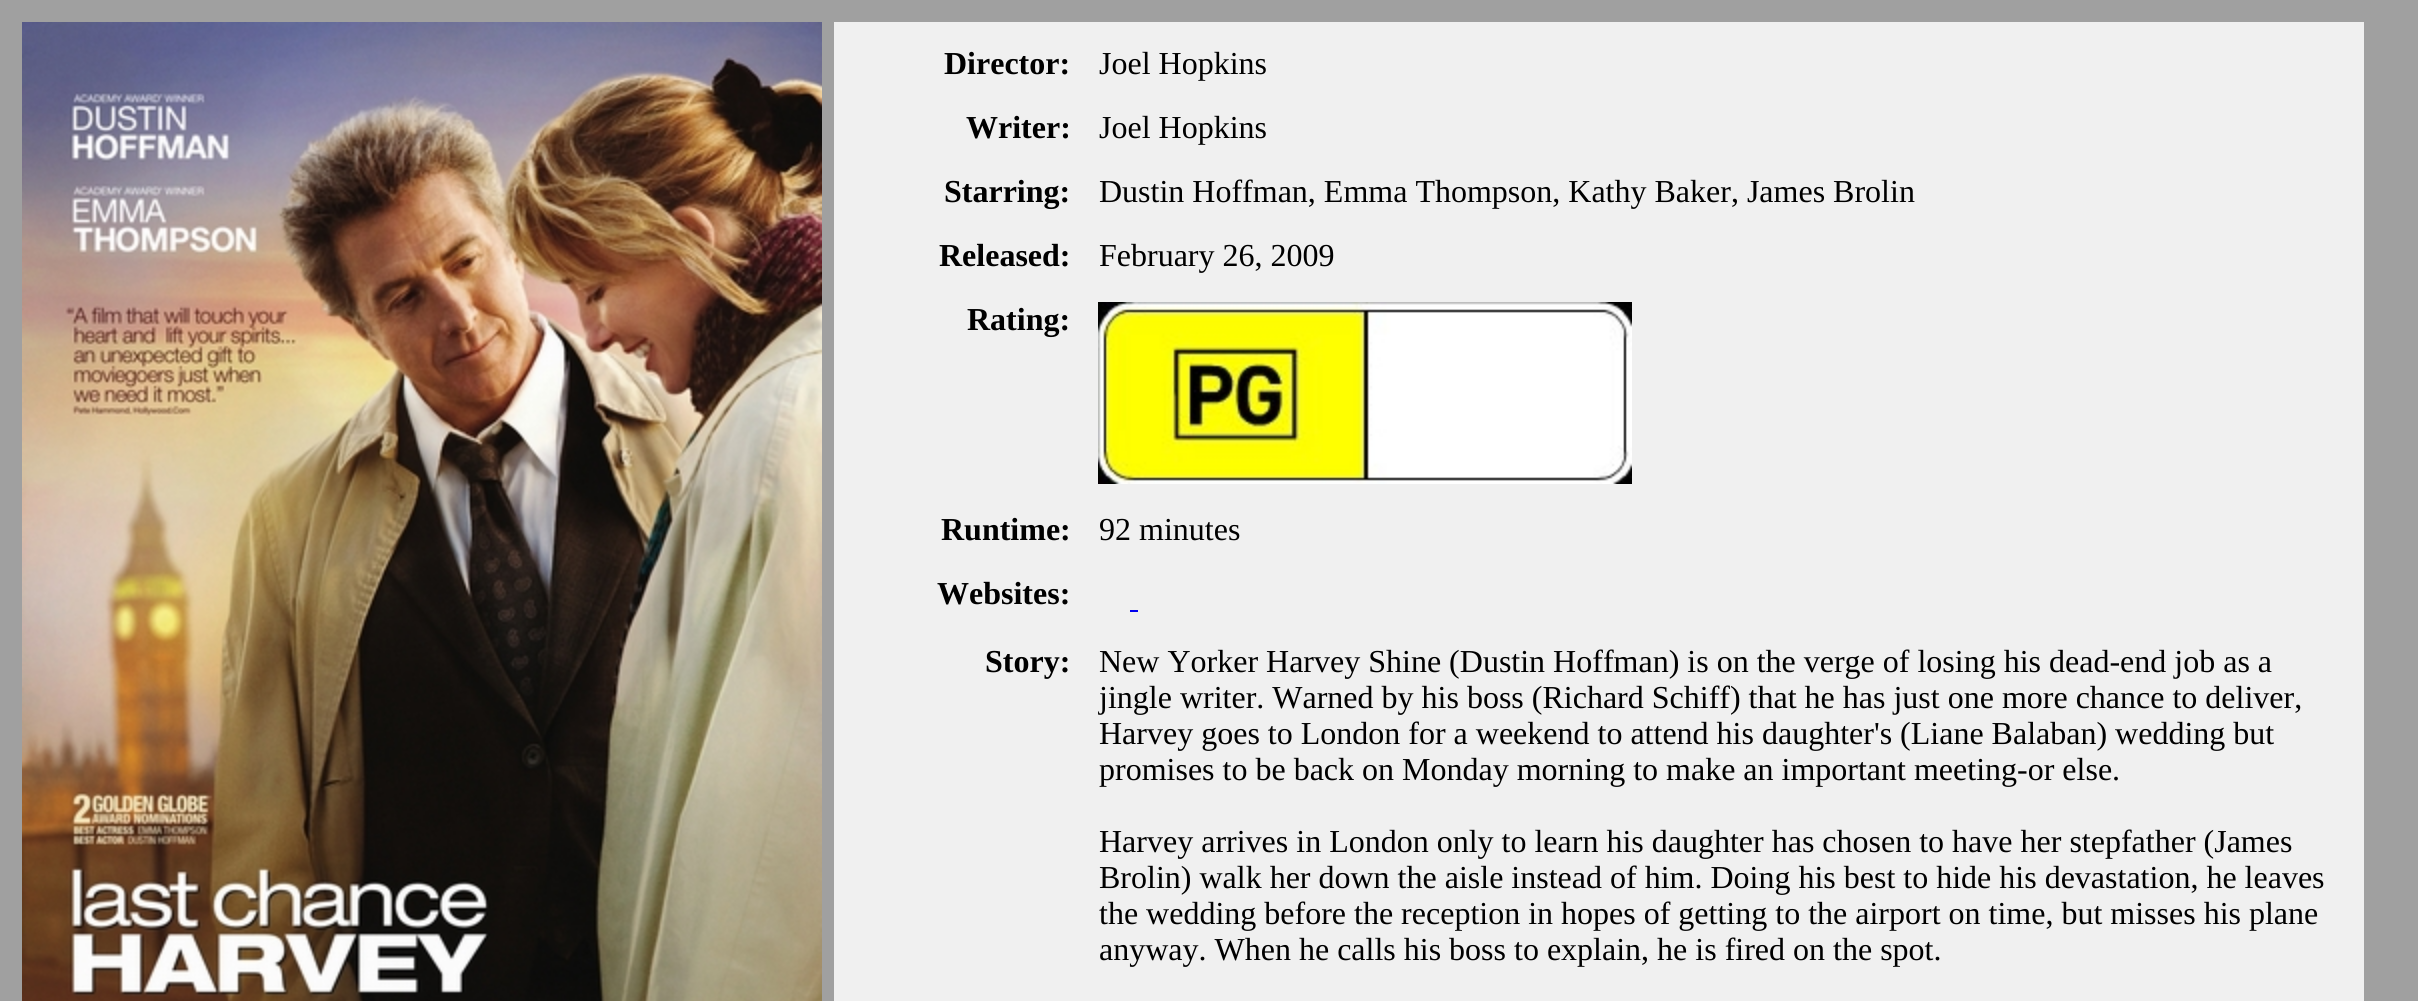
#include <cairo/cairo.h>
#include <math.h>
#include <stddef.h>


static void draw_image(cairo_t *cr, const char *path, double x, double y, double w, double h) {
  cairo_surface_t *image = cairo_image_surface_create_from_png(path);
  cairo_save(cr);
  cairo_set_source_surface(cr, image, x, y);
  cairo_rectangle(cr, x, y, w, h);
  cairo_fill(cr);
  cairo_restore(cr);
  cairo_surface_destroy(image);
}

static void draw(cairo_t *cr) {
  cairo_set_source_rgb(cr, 160 / 255.0, 160 / 255.0, 160 / 255.0);
  cairo_paint(cr);
  draw_image(cr, "images/1.png", 22, 22, 800, 979);
  cairo_set_source_rgb(cr, 240 / 255.0, 240 / 255.0, 240 / 255.0);
  cairo_rectangle(cr, 834, 22, 1530, 979);
  cairo_fill(cr);
  draw_image(cr, "images/2.png", 1098, 302, 534, 182);
  cairo_set_source_rgb(cr, 0, 0, 238 / 255.0);
  cairo_rectangle(cr, 1130, 610, 8, 2);
  cairo_fill(cr);
  cairo_select_font_face(cr, "Liberation Serif", CAIRO_FONT_SLANT_NORMAL, CAIRO_FONT_WEIGHT_BOLD);
  cairo_set_font_size(cr, 32);
  cairo_set_source_rgb(cr, 0, 0, 0);
  cairo_move_to(cr, 944, 74);
  cairo_show_text(cr, "Director:");
  cairo_select_font_face(cr, "Liberation Serif", CAIRO_FONT_SLANT_NORMAL, CAIRO_FONT_WEIGHT_NORMAL);
  cairo_move_to(cr, 1099, 74);
  cairo_show_text(cr, "Joel Hopkins");
  cairo_select_font_face(cr, "Liberation Serif", CAIRO_FONT_SLANT_NORMAL, CAIRO_FONT_WEIGHT_BOLD);
  cairo_move_to(cr, 966, 138);
  cairo_show_text(cr, "Writer:");
  cairo_select_font_face(cr, "Liberation Serif", CAIRO_FONT_SLANT_NORMAL, CAIRO_FONT_WEIGHT_NORMAL);
  cairo_move_to(cr, 1099, 138);
  cairo_show_text(cr, "Joel Hopkins");
  cairo_select_font_face(cr, "Liberation Serif", CAIRO_FONT_SLANT_NORMAL, CAIRO_FONT_WEIGHT_BOLD);
  cairo_move_to(cr, 944, 202);
  cairo_show_text(cr, "Starring:");
  cairo_select_font_face(cr, "Liberation Serif", CAIRO_FONT_SLANT_NORMAL, CAIRO_FONT_WEIGHT_NORMAL);
  cairo_move_to(cr, 1099, 202);
  cairo_show_text(cr, "Dustin Hoffman, Emma Thompson, Kathy Baker, James Brolin");
  cairo_select_font_face(cr, "Liberation Serif", CAIRO_FONT_SLANT_NORMAL, CAIRO_FONT_WEIGHT_BOLD);
  cairo_move_to(cr, 939, 266);
  cairo_show_text(cr, "Released:");
  cairo_select_font_face(cr, "Liberation Serif", CAIRO_FONT_SLANT_NORMAL, CAIRO_FONT_WEIGHT_NORMAL);
  cairo_move_to(cr, 1099, 266);
  cairo_show_text(cr, "February 26, 2009");
  cairo_select_font_face(cr, "Liberation Serif", CAIRO_FONT_SLANT_NORMAL, CAIRO_FONT_WEIGHT_BOLD);
  cairo_move_to(cr, 967, 330);
  cairo_show_text(cr, "Rating:");
  cairo_move_to(cr, 941, 540);
  cairo_show_text(cr, "Runtime:");
  cairo_select_font_face(cr, "Liberation Serif", CAIRO_FONT_SLANT_NORMAL, CAIRO_FONT_WEIGHT_NORMAL);
  cairo_move_to(cr, 1099, 540);
  cairo_show_text(cr, "92 minutes");
  cairo_select_font_face(cr, "Liberation Serif", CAIRO_FONT_SLANT_NORMAL, CAIRO_FONT_WEIGHT_BOLD);
  cairo_move_to(cr, 937, 604);
  cairo_show_text(cr, "Websites:");
  cairo_move_to(cr, 985, 672);
  cairo_show_text(cr, "Story:");
  cairo_select_font_face(cr, "Liberation Serif", CAIRO_FONT_SLANT_NORMAL, CAIRO_FONT_WEIGHT_NORMAL);
  cairo_move_to(cr, 1099, 672);
  cairo_show_text(cr, "New Yorker Harvey Shine (Dustin Hoffman) is on the verge of losing his dead-end job as a");
  cairo_move_to(cr, 1099, 708);
  cairo_show_text(cr, "jingle writer. Warned by his boss (Richard Schiff) that he has just one more chance to deliver,");
  cairo_move_to(cr, 1099, 744);
  cairo_show_text(cr, "Harvey goes to London for a weekend to attend his daughter's (Liane Balaban) wedding but");
  cairo_move_to(cr, 1099, 780);
  cairo_show_text(cr, "promises to be back on Monday morning to make an important meeting-or else.");
  cairo_move_to(cr, 1099, 852);
  cairo_show_text(cr, "Harvey arrives in London only to learn his daughter has chosen to have her stepfather (James");
  cairo_move_to(cr, 1099, 888);
  cairo_show_text(cr, "Brolin) walk her down the aisle instead of him. Doing his best to hide his devastation, he leaves");
  cairo_move_to(cr, 1099, 924);
  cairo_show_text(cr, "the wedding before the reception in hopes of getting to the airport on time, but misses his plane");
  cairo_move_to(cr, 1099, 960);
  cairo_show_text(cr, "anyway. When he calls his boss to explain, he is fired on the spot.");
}

int main(void) {
  cairo_surface_t *surface = cairo_image_surface_create(CAIRO_FORMAT_RGB24, 2418, 1001);
  cairo_t *cr = cairo_create(surface);
  cairo_font_options_t *options = cairo_font_options_create();
  cairo_font_options_set_hint_metrics(options, CAIRO_HINT_METRICS_OFF);
  cairo_font_options_set_hint_style(options, CAIRO_HINT_STYLE_NONE);
  cairo_set_font_options(cr, options);
  cairo_set_miter_limit(cr, 4);
  draw(cr);
  cairo_surface_write_to_png(surface, "out.png");
  cairo_font_options_destroy(options);
  cairo_destroy(cr);
  cairo_surface_destroy(surface);
  return 0;
}
